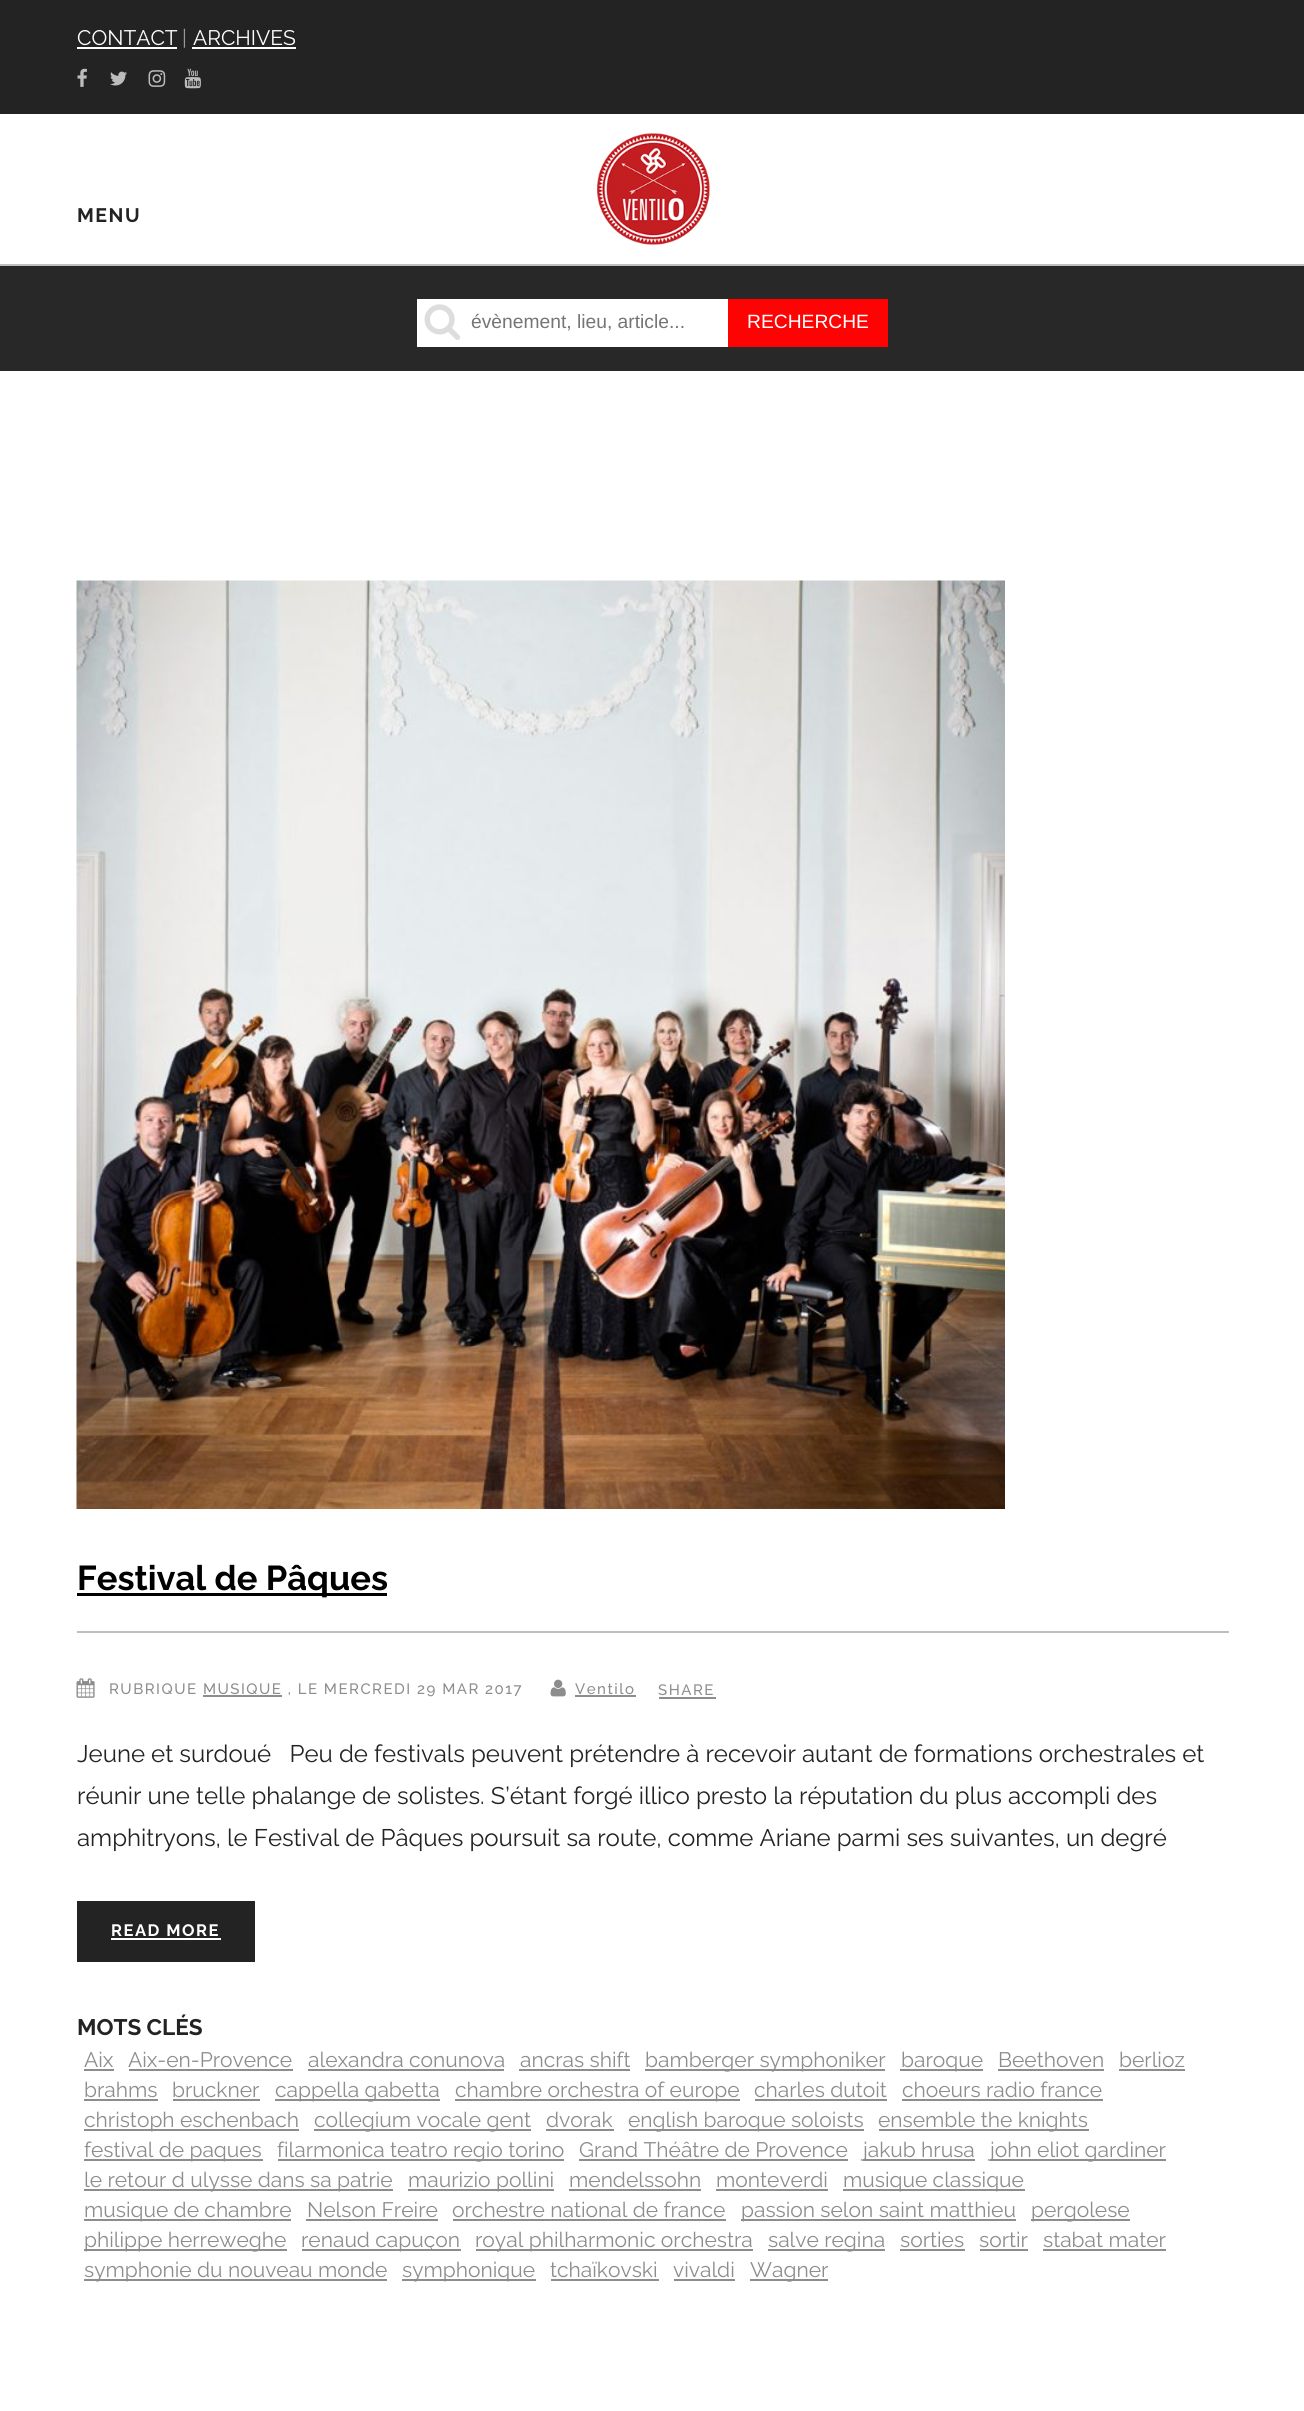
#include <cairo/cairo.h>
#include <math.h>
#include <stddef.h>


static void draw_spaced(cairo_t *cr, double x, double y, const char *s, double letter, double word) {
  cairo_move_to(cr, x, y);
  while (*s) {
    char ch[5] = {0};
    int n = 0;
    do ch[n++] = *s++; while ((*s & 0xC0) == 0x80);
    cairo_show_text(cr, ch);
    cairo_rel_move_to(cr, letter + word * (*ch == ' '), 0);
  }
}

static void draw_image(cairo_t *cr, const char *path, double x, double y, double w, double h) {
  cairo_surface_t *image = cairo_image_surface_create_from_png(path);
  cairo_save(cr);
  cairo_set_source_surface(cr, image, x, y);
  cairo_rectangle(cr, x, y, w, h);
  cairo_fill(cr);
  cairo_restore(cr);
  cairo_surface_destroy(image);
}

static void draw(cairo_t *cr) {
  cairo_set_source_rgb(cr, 1, 1, 1);
  cairo_paint(cr);
  cairo_set_source_rgb(cr, 35 / 255.0, 35 / 255.0, 35 / 255.0);
  cairo_rectangle(cr, 0, 0, 1304, 114);
  cairo_fill(cr);
  cairo_set_source_rgb(cr, 1, 1, 1);
  cairo_rectangle(cr, 77, 47, 100, 2);
  cairo_fill(cr);
  cairo_rectangle(cr, 192, 47, 104, 2);
  cairo_fill(cr);
  draw_image(cr, "images/1.png", 77, 68, 10, 19);
  draw_image(cr, "images/2.png", 110, 71, 17, 15);
  draw_image(cr, "images/3.png", 148, 70, 18, 17);
  draw_image(cr, "images/4.png", 184, 68, 17, 21);
  cairo_set_source_rgb(cr, 188 / 255.0, 192 / 255.0, 196 / 255.0);
  cairo_rectangle(cr, 0, 264, 1304, 2);
  cairo_fill(cr);
  draw_image(cr, "images/5.png", 597, 133, 113, 112);
  cairo_set_source_rgb(cr, 40 / 255.0, 40 / 255.0, 40 / 255.0);
  cairo_rectangle(cr, 0, 266, 1304, 105);
  cairo_fill(cr);
  cairo_set_source_rgb(cr, 1, 1, 1);
  cairo_rectangle(cr, 417, 299, 311, 48);
  cairo_fill(cr);
  draw_image(cr, "images/6.png", 424, 304, 36, 36);
  cairo_set_source_rgb(cr, 1, 2 / 255.0, 4 / 255.0);
  cairo_rectangle(cr, 728, 299, 160, 48);
  cairo_fill(cr);
  draw_image(cr, "images/7.png", 76, 580, 929, 929);
  cairo_set_source_rgb(cr, 0, 0, 0);
  cairo_rectangle(cr, 77, 1593, 310, 3);
  cairo_fill(cr);
  cairo_set_source_rgb(cr, 188 / 255.0, 192 / 255.0, 196 / 255.0);
  cairo_rectangle(cr, 77, 1631, 1152, 2);
  cairo_fill(cr);
  draw_image(cr, "images/8.png", 76, 1678, 19, 20);
  cairo_set_source_rgb(cr, 141 / 255.0, 141 / 255.0, 141 / 255.0);
  cairo_rectangle(cr, 203, 1695, 79, 2);
  cairo_fill(cr);
  draw_image(cr, "images/9.png", 550, 1679, 16, 18);
  cairo_rectangle(cr, 575, 1695, 61, 2);
  cairo_fill(cr);
  cairo_rectangle(cr, 659, 1697, 57, 2);
  cairo_fill(cr);
  cairo_set_source_rgb(cr, 35 / 255.0, 35 / 255.0, 35 / 255.0);
  cairo_rectangle(cr, 77, 1901, 178, 61);
  cairo_fill(cr);
  cairo_set_source_rgb(cr, 1, 1, 1);
  cairo_rectangle(cr, 111, 1938, 110, 2);
  cairo_fill(cr);
  cairo_set_source_rgb(cr, 141 / 255.0, 141 / 255.0, 141 / 255.0);
  cairo_rectangle(cr, 84, 2069, 30, 2);
  cairo_fill(cr);
  cairo_rectangle(cr, 129, 2069, 164, 2);
  cairo_fill(cr);
  cairo_rectangle(cr, 308, 2069, 196, 2);
  cairo_fill(cr);
  cairo_rectangle(cr, 519, 2069, 111, 2);
  cairo_fill(cr);
  cairo_rectangle(cr, 645, 2069, 240, 2);
  cairo_fill(cr);
  cairo_rectangle(cr, 900, 2069, 83, 2);
  cairo_fill(cr);
  cairo_rectangle(cr, 998, 2069, 106, 2);
  cairo_fill(cr);
  cairo_rectangle(cr, 1119, 2069, 66, 2);
  cairo_fill(cr);
  cairo_rectangle(cr, 84, 2099, 74, 2);
  cairo_fill(cr);
  cairo_rectangle(cr, 173, 2099, 87, 2);
  cairo_fill(cr);
  cairo_rectangle(cr, 275, 2099, 165, 2);
  cairo_fill(cr);
  cairo_rectangle(cr, 455, 2099, 285, 2);
  cairo_fill(cr);
  cairo_rectangle(cr, 755, 2099, 132, 2);
  cairo_fill(cr);
  cairo_rectangle(cr, 902, 2099, 201, 2);
  cairo_fill(cr);
  cairo_rectangle(cr, 84, 2129, 215, 2);
  cairo_fill(cr);
  cairo_rectangle(cr, 314, 2129, 217, 2);
  cairo_fill(cr);
  cairo_rectangle(cr, 546, 2129, 68, 2);
  cairo_fill(cr);
  cairo_rectangle(cr, 629, 2129, 235, 2);
  cairo_fill(cr);
  cairo_rectangle(cr, 879, 2129, 210, 2);
  cairo_fill(cr);
  cairo_rectangle(cr, 84, 2159, 179, 2);
  cairo_fill(cr);
  cairo_rectangle(cr, 278, 2159, 286, 2);
  cairo_fill(cr);
  cairo_rectangle(cr, 579, 2159, 269, 2);
  cairo_fill(cr);
  cairo_rectangle(cr, 863, 2159, 112, 2);
  cairo_fill(cr);
  cairo_rectangle(cr, 990, 2159, 176, 2);
  cairo_fill(cr);
  cairo_rectangle(cr, 84, 2189, 309, 2);
  cairo_fill(cr);
  cairo_rectangle(cr, 408, 2189, 146, 2);
  cairo_fill(cr);
  cairo_rectangle(cr, 569, 2189, 132, 2);
  cairo_fill(cr);
  cairo_rectangle(cr, 716, 2189, 112, 2);
  cairo_fill(cr);
  cairo_rectangle(cr, 843, 2189, 182, 2);
  cairo_fill(cr);
  cairo_rectangle(cr, 84, 2219, 207, 2);
  cairo_fill(cr);
  cairo_rectangle(cr, 306, 2219, 132, 2);
  cairo_fill(cr);
  cairo_rectangle(cr, 453, 2219, 273, 2);
  cairo_fill(cr);
  cairo_rectangle(cr, 741, 2219, 275, 2);
  cairo_fill(cr);
  cairo_rectangle(cr, 1031, 2219, 99, 2);
  cairo_fill(cr);
  cairo_rectangle(cr, 84, 2249, 203, 2);
  cairo_fill(cr);
  cairo_rectangle(cr, 302, 2249, 159, 2);
  cairo_fill(cr);
  cairo_rectangle(cr, 476, 2249, 277, 2);
  cairo_fill(cr);
  cairo_rectangle(cr, 768, 2249, 117, 2);
  cairo_fill(cr);
  cairo_rectangle(cr, 900, 2249, 65, 2);
  cairo_fill(cr);
  cairo_rectangle(cr, 980, 2249, 48, 2);
  cairo_fill(cr);
  cairo_rectangle(cr, 1043, 2249, 123, 2);
  cairo_fill(cr);
  cairo_rectangle(cr, 84, 2279, 303, 2);
  cairo_fill(cr);
  cairo_rectangle(cr, 402, 2279, 134, 2);
  cairo_fill(cr);
  cairo_rectangle(cr, 551, 2279, 108, 2);
  cairo_fill(cr);
  cairo_rectangle(cr, 674, 2279, 61, 2);
  cairo_fill(cr);
  cairo_rectangle(cr, 750, 2279, 78, 2);
  cairo_fill(cr);
  cairo_select_font_face(cr, "Raleway", CAIRO_FONT_SLANT_NORMAL, CAIRO_FONT_WEIGHT_NORMAL);
  cairo_set_font_size(cr, 21);
  cairo_set_source_rgb(cr, 1, 1, 1);
  cairo_move_to(cr, 77, 45);
  cairo_show_text(cr, "CONTACT");
  cairo_set_source_rgb(cr, 153 / 255.0, 153 / 255.0, 153 / 255.0);
  cairo_move_to(cr, 182, 45);
  cairo_show_text(cr, "|");
  cairo_set_source_rgb(cr, 1, 1, 1);
  cairo_move_to(cr, 193, 45);
  cairo_show_text(cr, "ARCHIVES");
  cairo_select_font_face(cr, "Raleway", CAIRO_FONT_SLANT_NORMAL, CAIRO_FONT_WEIGHT_BOLD);
  cairo_set_font_size(cr, 19.5);
  cairo_set_source_rgb(cr, 35 / 255.0, 35 / 255.0, 35 / 255.0);
  draw_spaced(cr, 77, 222, "MENU", 1.5, 0);
  cairo_select_font_face(cr, "Liberation Sans", CAIRO_FONT_SLANT_NORMAL, CAIRO_FONT_WEIGHT_NORMAL);
  cairo_set_font_size(cr, 19.25);
  cairo_set_source_rgb(cr, 117 / 255.0, 117 / 255.0, 117 / 255.0);
  cairo_move_to(cr, 471, 328);
  cairo_show_text(cr, "évènement, lieu, article...");
  cairo_set_source_rgb(cr, 1, 1, 1);
  cairo_move_to(cr, 747, 328);
  cairo_show_text(cr, "RECHERCHE");
  cairo_select_font_face(cr, "Raleway", CAIRO_FONT_SLANT_NORMAL, CAIRO_FONT_WEIGHT_BOLD);
  cairo_set_font_size(cr, 34.5);
  cairo_set_source_rgb(cr, 0, 0, 0);
  cairo_move_to(cr, 77, 1590);
  cairo_show_text(cr, "Festival de Pâques");
  cairo_select_font_face(cr, "Raleway Medium", CAIRO_FONT_SLANT_NORMAL, CAIRO_FONT_WEIGHT_NORMAL);
  cairo_set_font_size(cr, 15);
  cairo_set_source_rgb(cr, 141 / 255.0, 141 / 255.0, 141 / 255.0);
  draw_spaced(cr, 109, 1694, "RUBRIQUE MUSIQUE , LE MERCREDI 29 MAR 2017", 1.5, 0);
  draw_spaced(cr, 575, 1694, "Ventilo", 1.5, 0);
  draw_spaced(cr, 658, 1695, "SHARE", 1.5, 0);
  cairo_select_font_face(cr, "Raleway", CAIRO_FONT_SLANT_NORMAL, CAIRO_FONT_WEIGHT_NORMAL);
  cairo_set_font_size(cr, 24);
  cairo_set_source_rgb(cr, 35 / 255.0, 35 / 255.0, 35 / 255.0);
  cairo_move_to(cr, 77, 1762);
  cairo_show_text(cr, "Jeune et surdoué   Peu de festivals peuvent prétendre à recevoir autant de formations orchestrales et");
  cairo_move_to(cr, 77, 1804);
  cairo_show_text(cr, "réunir une telle phalange de solistes. S’étant forgé illico presto la réputation du plus accompli des");
  cairo_move_to(cr, 77, 1846);
  cairo_show_text(cr, "amphitryons, le Festival de Pâques poursuit sa route, comme Ariane parmi ses suivantes, un degré");
  cairo_select_font_face(cr, "Raleway", CAIRO_FONT_SLANT_NORMAL, CAIRO_FONT_WEIGHT_BOLD);
  cairo_set_font_size(cr, 16.5);
  cairo_set_source_rgb(cr, 1, 1, 1);
  draw_spaced(cr, 111, 1936, "READ MORE", 1.5, 0);
  cairo_set_font_size(cr, 22.5);
  cairo_set_source_rgb(cr, 35 / 255.0, 35 / 255.0, 35 / 255.0);
  cairo_move_to(cr, 77, 2035);
  cairo_show_text(cr, "MOTS CLÉS");
  cairo_select_font_face(cr, "Raleway", CAIRO_FONT_SLANT_NORMAL, CAIRO_FONT_WEIGHT_NORMAL);
  cairo_set_font_size(cr, 21);
  cairo_set_source_rgb(cr, 141 / 255.0, 141 / 255.0, 141 / 255.0);
  cairo_move_to(cr, 84, 2067);
  cairo_show_text(cr, "Aix");
  cairo_move_to(cr, 128, 2067);
  cairo_show_text(cr, "Aix-en-Provence");
  cairo_move_to(cr, 308, 2067);
  cairo_show_text(cr, "alexandra conunova");
  cairo_move_to(cr, 520, 2067);
  cairo_show_text(cr, "ancras shift");
  cairo_move_to(cr, 645, 2067);
  cairo_show_text(cr, "bamberger symphoniker");
  cairo_move_to(cr, 901, 2067);
  cairo_show_text(cr, "baroque");
  cairo_move_to(cr, 998, 2067);
  cairo_show_text(cr, "Beethoven");
  cairo_move_to(cr, 1119, 2067);
  cairo_show_text(cr, "berlioz");
  cairo_move_to(cr, 84, 2097);
  cairo_show_text(cr, "brahms");
  cairo_move_to(cr, 172, 2097);
  cairo_show_text(cr, "bruckner");
  cairo_move_to(cr, 275, 2097);
  cairo_show_text(cr, "cappella gabetta");
  cairo_move_to(cr, 455, 2097);
  cairo_show_text(cr, "chambre orchestra of europe");
  cairo_move_to(cr, 754, 2097);
  cairo_show_text(cr, "charles dutoit");
  cairo_move_to(cr, 902, 2097);
  cairo_show_text(cr, "choeurs radio france");
  cairo_move_to(cr, 84, 2127);
  cairo_show_text(cr, "christoph eschenbach");
  cairo_move_to(cr, 314, 2127);
  cairo_show_text(cr, "collegium vocale gent");
  cairo_move_to(cr, 546, 2127);
  cairo_show_text(cr, "dvorak");
  cairo_move_to(cr, 628, 2127);
  cairo_show_text(cr, "english baroque soloists");
  cairo_move_to(cr, 878, 2127);
  cairo_show_text(cr, "ensemble the knights");
  cairo_move_to(cr, 84, 2157);
  cairo_show_text(cr, "festival de paques");
  cairo_move_to(cr, 277, 2157);
  cairo_show_text(cr, "filarmonica teatro regio torino");
  cairo_move_to(cr, 579, 2157);
  cairo_show_text(cr, "Grand Théâtre de Provence");
  cairo_move_to(cr, 863, 2157);
  cairo_show_text(cr, "jakub hrusa");
  cairo_move_to(cr, 990, 2157);
  cairo_show_text(cr, "john eliot gardiner");
  cairo_move_to(cr, 84, 2187);
  cairo_show_text(cr, "le retour d ulysse dans sa patrie");
  cairo_move_to(cr, 408, 2187);
  cairo_show_text(cr, "maurizio pollini");
  cairo_move_to(cr, 569, 2187);
  cairo_show_text(cr, "mendelssohn");
  cairo_move_to(cr, 716, 2187);
  cairo_show_text(cr, "monteverdi");
  cairo_move_to(cr, 843, 2187);
  cairo_show_text(cr, "musique classique");
  cairo_move_to(cr, 84, 2217);
  cairo_show_text(cr, "musique de chambre");
  cairo_move_to(cr, 307, 2217);
  cairo_show_text(cr, "Nelson Freire");
  cairo_move_to(cr, 452, 2217);
  cairo_show_text(cr, "orchestre national de france");
  cairo_move_to(cr, 741, 2217);
  cairo_show_text(cr, "passion selon saint matthieu");
  cairo_move_to(cr, 1031, 2217);
  cairo_show_text(cr, "pergolese");
  cairo_move_to(cr, 84, 2247);
  cairo_show_text(cr, "philippe herreweghe");
  cairo_move_to(cr, 301, 2247);
  cairo_show_text(cr, "renaud capuçon");
  cairo_move_to(cr, 475, 2247);
  cairo_show_text(cr, "royal philharmonic orchestra");
  cairo_move_to(cr, 768, 2247);
  cairo_show_text(cr, "salve regina");
  cairo_move_to(cr, 900, 2247);
  cairo_show_text(cr, "sorties");
  cairo_move_to(cr, 979, 2247);
  cairo_show_text(cr, "sortir");
  cairo_move_to(cr, 1043, 2247);
  cairo_show_text(cr, "stabat mater");
  cairo_move_to(cr, 84, 2277);
  cairo_show_text(cr, "symphonie du nouveau monde");
  cairo_move_to(cr, 402, 2277);
  cairo_show_text(cr, "symphonique");
  cairo_move_to(cr, 550, 2277);
  cairo_show_text(cr, "tchaïkovski");
  cairo_move_to(cr, 673, 2277);
  cairo_show_text(cr, "vivaldi");
  cairo_move_to(cr, 750, 2277);
  cairo_show_text(cr, "Wagner");
}

int main(void) {
  cairo_surface_t *surface = cairo_image_surface_create(CAIRO_FORMAT_RGB24, 1304, 2411);
  cairo_t *cr = cairo_create(surface);
  cairo_font_options_t *options = cairo_font_options_create();
  cairo_font_options_set_hint_metrics(options, CAIRO_HINT_METRICS_OFF);
  cairo_font_options_set_hint_style(options, CAIRO_HINT_STYLE_NONE);
  cairo_set_font_options(cr, options);
  cairo_set_miter_limit(cr, 4);
  draw(cr);
  cairo_surface_write_to_png(surface, "out.png");
  cairo_font_options_destroy(options);
  cairo_destroy(cr);
  cairo_surface_destroy(surface);
  return 0;
}
